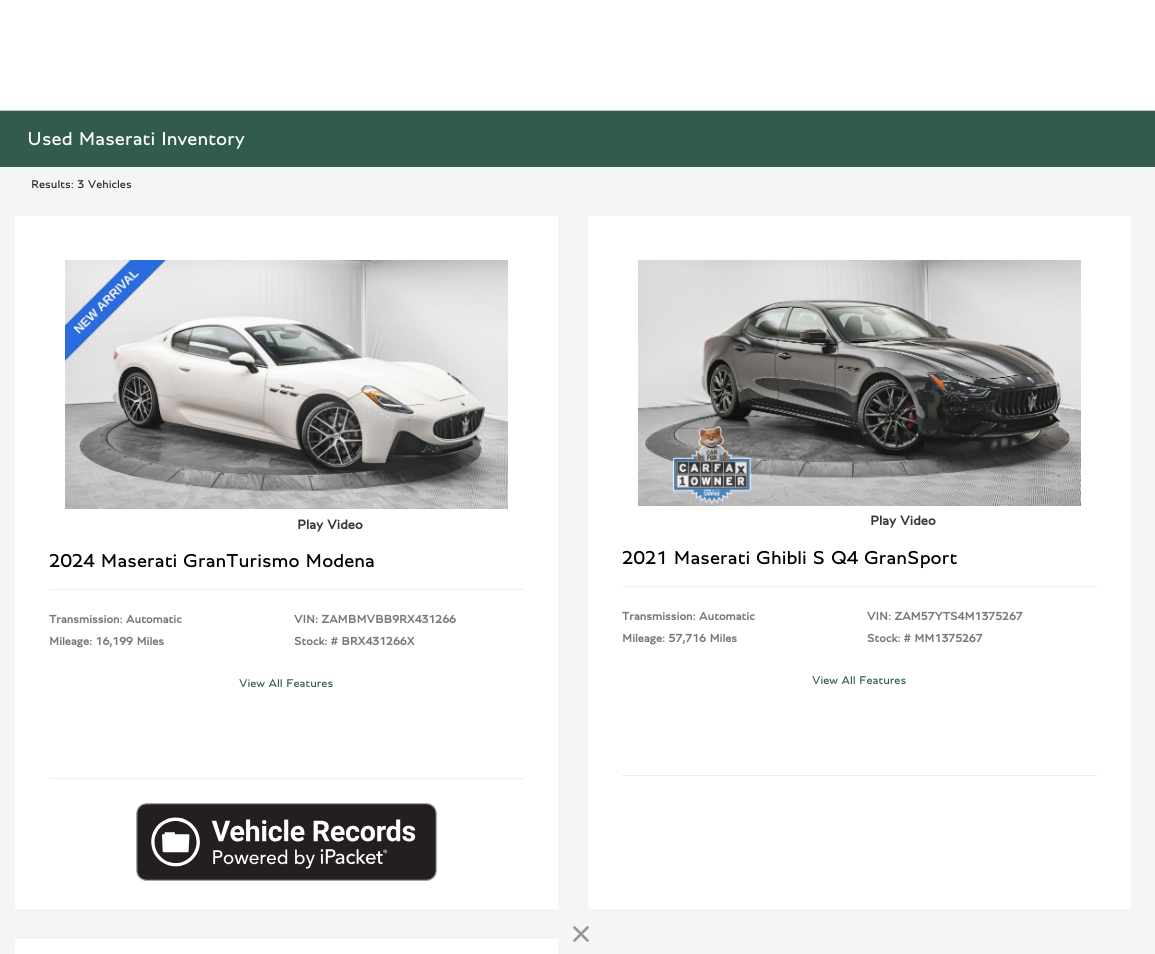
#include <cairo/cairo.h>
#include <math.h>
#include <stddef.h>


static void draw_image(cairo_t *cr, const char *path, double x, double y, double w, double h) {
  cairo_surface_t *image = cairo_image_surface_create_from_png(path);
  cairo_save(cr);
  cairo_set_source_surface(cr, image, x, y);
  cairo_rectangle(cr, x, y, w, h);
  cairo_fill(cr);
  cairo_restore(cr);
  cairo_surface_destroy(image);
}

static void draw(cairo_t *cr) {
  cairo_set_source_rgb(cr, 1, 1, 1);
  cairo_paint(cr);
  cairo_set_source_rgb(cr, 245 / 255.0, 245 / 255.0, 245 / 255.0);
  cairo_rectangle(cr, 0, 167, 1155, 787);
  cairo_fill(cr);
  cairo_set_source_rgb(cr, 51 / 255.0, 91 / 255.0, 76 / 255.0);
  cairo_rectangle(cr, 0, 111, 1155, 56);
  cairo_fill(cr);
  cairo_set_source_rgb(cr, 198 / 255.0, 198 / 255.0, 198 / 255.0);
  cairo_rectangle(cr, 0, 110, 1155, 1);
  cairo_fill(cr);
  cairo_set_source_rgb(cr, 1, 1, 1);
  cairo_rectangle(cr, 15, 216, 543, 693);
  cairo_fill(cr);
  draw_image(cr, "images/1.png", 65, 260, 443, 249);
  cairo_set_source_rgb(cr, 237 / 255.0, 237 / 255.0, 237 / 255.0);
  cairo_rectangle(cr, 49, 589, 475, 1);
  cairo_fill(cr);
  cairo_rectangle(cr, 49, 778, 475, 1);
  cairo_fill(cr);
  draw_image(cr, "images/2.png", 136, 803, 301, 78);
  cairo_set_source_rgb(cr, 1, 1, 1);
  cairo_rectangle(cr, 588, 216, 543, 693);
  cairo_fill(cr);
  draw_image(cr, "images/3.png", 638, 260, 443, 246);
  cairo_set_source_rgb(cr, 237 / 255.0, 237 / 255.0, 237 / 255.0);
  cairo_rectangle(cr, 622, 586, 475, 1);
  cairo_fill(cr);
  cairo_rectangle(cr, 622, 775, 475, 1);
  cairo_fill(cr);
  draw_image(cr, "images/4.png", 573, 926, 16, 16);
  cairo_set_source_rgb(cr, 1, 1, 1);
  cairo_rectangle(cr, 15, 939, 543, 15);
  cairo_fill(cr);
  cairo_select_font_face(cr, "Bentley", CAIRO_FONT_SLANT_NORMAL, CAIRO_FONT_WEIGHT_NORMAL);
  cairo_set_font_size(cr, 20);
  cairo_move_to(cr, 27, 145);
  cairo_show_text(cr, "Used Maserati Inventory");
  cairo_set_font_size(cr, 12);
  cairo_set_source_rgb(cr, 33 / 255.0, 37 / 255.0, 41 / 255.0);
  cairo_move_to(cr, 31, 188);
  cairo_show_text(cr, "Results: 3 Vehicles");
  cairo_select_font_face(cr, "Bentley", CAIRO_FONT_SLANT_NORMAL, CAIRO_FONT_WEIGHT_BOLD);
  cairo_set_font_size(cr, 14);
  cairo_set_source_rgb(cr, 52 / 255.0, 58 / 255.0, 64 / 255.0);
  cairo_move_to(cr, 297, 529);
  cairo_show_text(cr, "Play Video");
  cairo_select_font_face(cr, "Bentley", CAIRO_FONT_SLANT_NORMAL, CAIRO_FONT_WEIGHT_NORMAL);
  cairo_set_font_size(cr, 20);
  cairo_set_source_rgb(cr, 0, 0, 0);
  cairo_move_to(cr, 49, 567);
  cairo_show_text(cr, "2024 Maserati GranTurismo Modena");
  cairo_select_font_face(cr, "Bentley", CAIRO_FONT_SLANT_NORMAL, CAIRO_FONT_WEIGHT_BOLD);
  cairo_set_font_size(cr, 12);
  cairo_set_source_rgb(cr, 121 / 255.0, 120 / 255.0, 120 / 255.0);
  cairo_move_to(cr, 49, 623);
  cairo_show_text(cr, "Transmission: Automatic");
  cairo_move_to(cr, 49, 645);
  cairo_show_text(cr, "Mileage: 16,199 Miles");
  cairo_move_to(cr, 294, 623);
  cairo_show_text(cr, "VIN: ZAMBMVBB9RX431266");
  cairo_move_to(cr, 294, 645);
  cairo_show_text(cr, "Stock: # BRX431266X");
  cairo_select_font_face(cr, "Bentley", CAIRO_FONT_SLANT_NORMAL, CAIRO_FONT_WEIGHT_NORMAL);
  cairo_set_source_rgb(cr, 51 / 255.0, 91 / 255.0, 76 / 255.0);
  cairo_move_to(cr, 239, 687);
  cairo_show_text(cr, "View All Features");
  cairo_select_font_face(cr, "Bentley", CAIRO_FONT_SLANT_NORMAL, CAIRO_FONT_WEIGHT_BOLD);
  cairo_set_font_size(cr, 14);
  cairo_set_source_rgb(cr, 52 / 255.0, 58 / 255.0, 64 / 255.0);
  cairo_move_to(cr, 870, 525);
  cairo_show_text(cr, "Play Video");
  cairo_select_font_face(cr, "Bentley", CAIRO_FONT_SLANT_NORMAL, CAIRO_FONT_WEIGHT_NORMAL);
  cairo_set_font_size(cr, 20);
  cairo_set_source_rgb(cr, 0, 0, 0);
  cairo_move_to(cr, 622, 564);
  cairo_show_text(cr, "2021 Maserati Ghibli S Q4 GranSport");
  cairo_select_font_face(cr, "Bentley", CAIRO_FONT_SLANT_NORMAL, CAIRO_FONT_WEIGHT_BOLD);
  cairo_set_font_size(cr, 12);
  cairo_set_source_rgb(cr, 121 / 255.0, 120 / 255.0, 120 / 255.0);
  cairo_move_to(cr, 622, 620);
  cairo_show_text(cr, "Transmission: Automatic");
  cairo_move_to(cr, 622, 642);
  cairo_show_text(cr, "Mileage: 57,716 Miles");
  cairo_move_to(cr, 867, 620);
  cairo_show_text(cr, "VIN: ZAM57YTS4M1375267");
  cairo_move_to(cr, 867, 642);
  cairo_show_text(cr, "Stock: # MM1375267");
  cairo_select_font_face(cr, "Bentley", CAIRO_FONT_SLANT_NORMAL, CAIRO_FONT_WEIGHT_NORMAL);
  cairo_set_source_rgb(cr, 51 / 255.0, 91 / 255.0, 76 / 255.0);
  cairo_move_to(cr, 812, 684);
  cairo_show_text(cr, "View All Features");
}

int main(void) {
  cairo_surface_t *surface = cairo_image_surface_create(CAIRO_FORMAT_RGB24, 1155, 954);
  cairo_t *cr = cairo_create(surface);
  cairo_font_options_t *options = cairo_font_options_create();
  cairo_font_options_set_hint_metrics(options, CAIRO_HINT_METRICS_OFF);
  cairo_font_options_set_hint_style(options, CAIRO_HINT_STYLE_NONE);
  cairo_set_font_options(cr, options);
  cairo_set_miter_limit(cr, 4);
  draw(cr);
  cairo_surface_write_to_png(surface, "out.png");
  cairo_font_options_destroy(options);
  cairo_destroy(cr);
  cairo_surface_destroy(surface);
  return 0;
}
